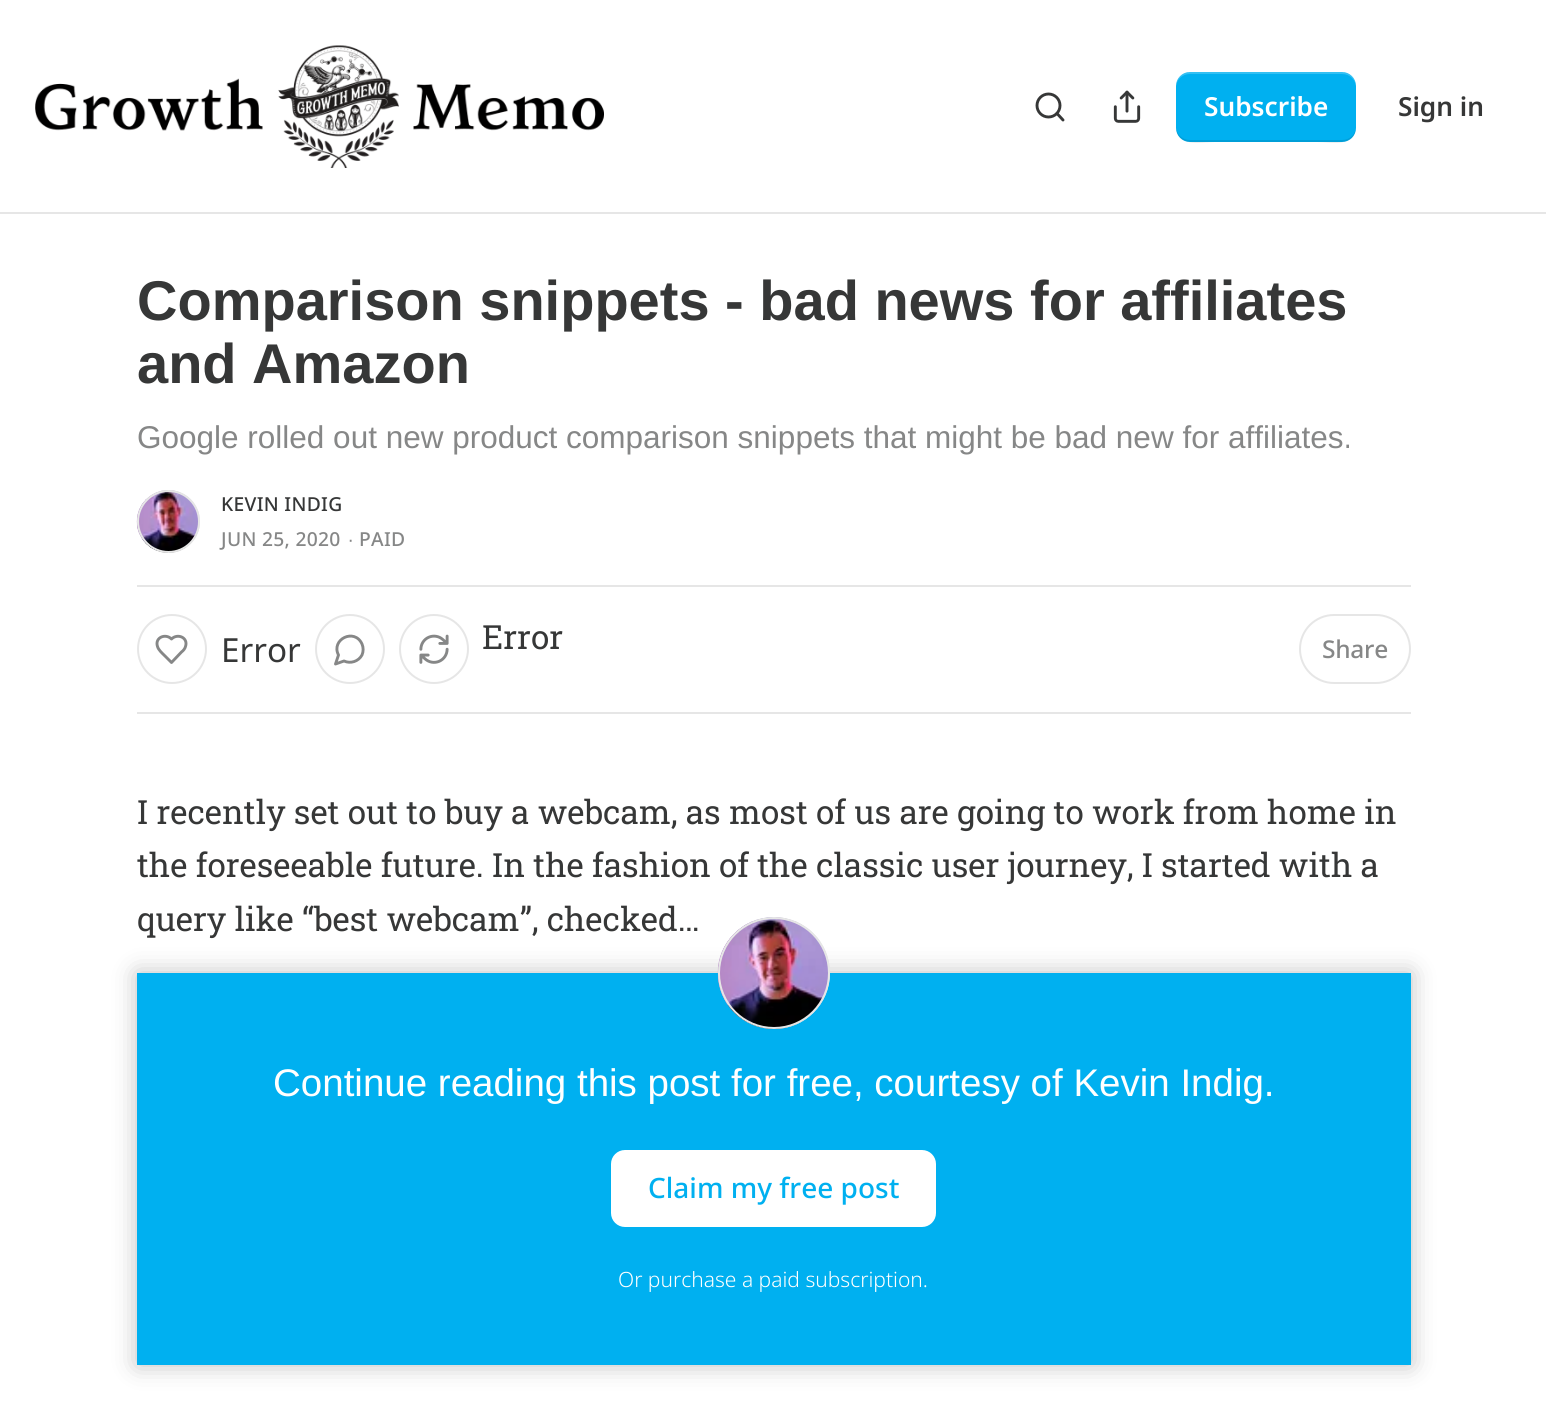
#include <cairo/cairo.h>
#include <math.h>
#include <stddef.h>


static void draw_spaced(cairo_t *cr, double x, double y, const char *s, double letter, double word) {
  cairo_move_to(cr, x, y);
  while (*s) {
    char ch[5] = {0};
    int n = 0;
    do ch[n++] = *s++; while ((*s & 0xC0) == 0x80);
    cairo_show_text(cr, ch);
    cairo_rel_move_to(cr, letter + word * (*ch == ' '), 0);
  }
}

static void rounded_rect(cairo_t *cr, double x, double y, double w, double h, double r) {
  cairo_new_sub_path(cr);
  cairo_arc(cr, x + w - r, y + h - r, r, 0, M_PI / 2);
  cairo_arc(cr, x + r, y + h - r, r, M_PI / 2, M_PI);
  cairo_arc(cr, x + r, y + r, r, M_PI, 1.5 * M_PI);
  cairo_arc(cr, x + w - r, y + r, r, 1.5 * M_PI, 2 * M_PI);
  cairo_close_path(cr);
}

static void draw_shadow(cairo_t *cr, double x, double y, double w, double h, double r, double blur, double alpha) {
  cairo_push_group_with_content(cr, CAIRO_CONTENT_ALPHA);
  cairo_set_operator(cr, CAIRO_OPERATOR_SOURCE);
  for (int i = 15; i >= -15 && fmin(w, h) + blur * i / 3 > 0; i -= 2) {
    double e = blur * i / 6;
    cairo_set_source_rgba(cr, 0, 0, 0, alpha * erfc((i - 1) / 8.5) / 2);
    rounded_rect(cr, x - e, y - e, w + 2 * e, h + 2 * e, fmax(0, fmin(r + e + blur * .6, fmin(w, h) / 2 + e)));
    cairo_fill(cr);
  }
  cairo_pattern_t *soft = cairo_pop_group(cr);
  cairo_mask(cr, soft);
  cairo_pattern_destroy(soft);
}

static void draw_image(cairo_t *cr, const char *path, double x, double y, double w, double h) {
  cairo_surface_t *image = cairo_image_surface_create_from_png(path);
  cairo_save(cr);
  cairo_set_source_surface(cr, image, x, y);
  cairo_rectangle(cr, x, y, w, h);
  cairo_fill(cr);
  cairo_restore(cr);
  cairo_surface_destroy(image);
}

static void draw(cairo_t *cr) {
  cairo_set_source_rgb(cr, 1, 1, 1);
  cairo_paint(cr);
  cairo_set_source_rgb(cr, 230 / 255.0, 230 / 255.0, 230 / 255.0);
  cairo_rectangle(cr, 0, 212, 1546, 2);
  cairo_fill(cr);
  draw_image(cr, "images/1.png", 35, 45, 569, 123);
  cairo_arc(cr, 1048.5, 105.5, 11.5, 0, 2 * M_PI);
  cairo_set_source_rgb(cr, 54 / 255.0, 55 / 255.0, 55 / 255.0);
  cairo_set_line_width(cr, 2.9);
  cairo_stroke(cr);
  cairo_new_path(cr);
  cairo_move_to(cr, 1063, 120);
  cairo_line_to(cr, 1057, 113.5);
  cairo_set_line_cap(cr, CAIRO_LINE_CAP_ROUND);
  cairo_set_line_join(cr, CAIRO_LINE_JOIN_ROUND);
  cairo_stroke(cr);
  draw_image(cr, "images/2.png", 1113, 90, 28, 33);
  cairo_set_source_rgb(cr, 0, 176 / 255.0, 240 / 255.0);
  rounded_rect(cr, 1176, 72, 180, 70, 14);
  cairo_fill(cr);
  cairo_set_source_rgba(cr, 0, 0, 0, 0.1);
  cairo_new_path(cr);
  cairo_move_to(cr, 1176, 126);
  cairo_curve_to(cr, 1176, 148, 1200, 142, 1215, 142);
  cairo_line_to(cr, 1317, 142);
  cairo_curve_to(cr, 1332, 142, 1356, 148, 1356, 126);
  cairo_curve_to(cr, 1356, 134, 1350, 140, 1342, 140);
  cairo_line_to(cr, 1190, 140);
  cairo_curve_to(cr, 1182, 140, 1176, 134, 1176, 126);
  cairo_close_path(cr);
  cairo_fill(cr);
  cairo_set_source_rgba(cr, 1, 1, 1, 0.2);
  cairo_new_path(cr);
  cairo_move_to(cr, 1190, 74);
  cairo_line_to(cr, 1342, 74);
  cairo_curve_to(cr, 1350, 74, 1356, 80, 1356, 88);
  cairo_curve_to(cr, 1356, 66, 1332, 72, 1317, 72);
  cairo_line_to(cr, 1215, 72);
  cairo_curve_to(cr, 1200, 72, 1176, 66, 1176, 88);
  cairo_curve_to(cr, 1176, 80, 1182, 74, 1190, 74);
  cairo_close_path(cr);
  cairo_fill(cr);
  cairo_arc(cr, 168.5, 521.5, 30.5, 0, 2 * M_PI);
  cairo_set_source_rgb(cr, 230 / 255.0, 230 / 255.0, 230 / 255.0);
  cairo_set_line_width(cr, 2);
  cairo_set_line_cap(cr, CAIRO_LINE_CAP_BUTT);
  cairo_set_line_join(cr, CAIRO_LINE_JOIN_MITER);
  cairo_stroke(cr);
  draw_image(cr, "images/3.png", 136, 490, 64, 63);
  cairo_arc(cr, 168.5, 521.5, 30.5, 0, 2 * M_PI);
  cairo_stroke(cr);
  cairo_rectangle(cr, 137, 585, 1274, 2);
  cairo_fill(cr);
  cairo_rectangle(cr, 137, 712, 1274, 2);
  cairo_fill(cr);
  cairo_arc(cr, 172, 649, 34, 0, 2 * M_PI);
  cairo_stroke(cr);
  cairo_new_path(cr);
  cairo_move_to(cr, 181.5, 652);
  cairo_curve_to(cr, 183.5, 650.5, 185, 648.5, 185.5, 646.5);
  cairo_curve_to(cr, 188.5, 637.5, 177.5, 633, 171.5, 639);
  cairo_curve_to(cr, 165.5, 633, 154.5, 637.5, 157.5, 646.5);
  cairo_curve_to(cr, 158.5, 650, 162, 653, 164.5, 655.5);
  cairo_line_to(cr, 171.5, 662.5);
  cairo_close_path(cr);
  cairo_set_source_rgb(cr, 134 / 255.0, 135 / 255.0, 135 / 255.0);
  cairo_set_line_width(cr, 2.9);
  cairo_set_line_cap(cr, CAIRO_LINE_CAP_ROUND);
  cairo_set_line_join(cr, CAIRO_LINE_JOIN_ROUND);
  cairo_stroke(cr);
  cairo_arc(cr, 350, 649, 34, 0, 2 * M_PI);
  cairo_set_source_rgb(cr, 230 / 255.0, 230 / 255.0, 230 / 255.0);
  cairo_set_line_width(cr, 2);
  cairo_set_line_cap(cr, CAIRO_LINE_CAP_BUTT);
  cairo_set_line_join(cr, CAIRO_LINE_JOIN_MITER);
  cairo_stroke(cr);
  cairo_new_path(cr);
  cairo_move_to(cr, 344, 661);
  cairo_curve_to(cr, 350.5, 664, 358.5, 661.5, 362, 655);
  cairo_curve_to(cr, 363.5, 651.5, 363.5, 647.5, 362, 644);
  cairo_curve_to(cr, 354.5, 627.5, 330.5, 639.5, 338.5, 655);
  cairo_line_to(cr, 335.5, 664);
  cairo_close_path(cr);
  cairo_set_source_rgb(cr, 134 / 255.0, 135 / 255.0, 135 / 255.0);
  cairo_set_line_width(cr, 2.9);
  cairo_set_line_cap(cr, CAIRO_LINE_CAP_ROUND);
  cairo_set_line_join(cr, CAIRO_LINE_JOIN_ROUND);
  cairo_stroke(cr);
  cairo_arc(cr, 434, 649, 34, 0, 2 * M_PI);
  cairo_set_source_rgb(cr, 230 / 255.0, 230 / 255.0, 230 / 255.0);
  cairo_set_line_width(cr, 2);
  cairo_set_line_cap(cr, CAIRO_LINE_CAP_BUTT);
  cairo_set_line_join(cr, CAIRO_LINE_JOIN_MITER);
  cairo_stroke(cr);
  draw_image(cr, "images/4.png", 419, 634, 30, 30);
  rounded_rect(cr, 1300, 615, 110, 68, 34);
  cairo_stroke(cr);
  cairo_set_source_rgb(cr, 0, 176 / 255.0, 240 / 255.0);
  cairo_rectangle(cr, 137, 973, 1274, 392);
  cairo_fill(cr);
  cairo_set_source_rgb(cr, 1, 1, 1);
  rounded_rect(cr, 612, 1151, 323, 75, 13);
  cairo_fill_preserve(cr);
  cairo_stroke(cr);
  cairo_save(cr);
  cairo_set_fill_rule(cr, CAIRO_FILL_RULE_EVEN_ODD);
  cairo_new_path(cr);
  cairo_move_to(cr, 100, 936);
  cairo_line_to(cr, 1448, 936);
  cairo_line_to(cr, 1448, 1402);
  cairo_line_to(cr, 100, 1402);
  cairo_close_path(cr);
  cairo_move_to(cr, 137, 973);
  cairo_line_to(cr, 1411, 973);
  cairo_line_to(cr, 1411, 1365);
  cairo_line_to(cr, 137, 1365);
  cairo_close_path(cr);
  cairo_clip(cr);
  cairo_set_source_rgb(cr, 0, 0, 0);
  draw_shadow(cr, 137, 973, 1274, 392, 0, 12, 0.25);
  cairo_restore(cr);
  cairo_arc(cr, 774, 973, 55, 0, 2 * M_PI);
  cairo_set_source_rgb(cr, 230 / 255.0, 230 / 255.0, 230 / 255.0);
  cairo_stroke(cr);
  draw_image(cr, "images/5.png", 717, 917, 113, 112);
  cairo_arc(cr, 774, 973, 55, 0, 2 * M_PI);
  cairo_stroke(cr);
  cairo_select_font_face(cr, "Noto Sans SemiBold", CAIRO_FONT_SLANT_NORMAL, CAIRO_FONT_WEIGHT_NORMAL);
  cairo_set_font_size(cr, 26.25);
  cairo_set_source_rgb(cr, 1, 1, 1);
  cairo_move_to(cr, 1204, 116);
  cairo_show_text(cr, "Subscribe");
  cairo_set_source_rgb(cr, 54 / 255.0, 55 / 255.0, 55 / 255.0);
  cairo_move_to(cr, 1398, 116);
  cairo_show_text(cr, "Sign in");
  cairo_select_font_face(cr, "Liberation Sans", CAIRO_FONT_SLANT_NORMAL, CAIRO_FONT_WEIGHT_BOLD);
  cairo_set_font_size(cr, 56);
  cairo_move_to(cr, 137, 320);
  cairo_show_text(cr, "Comparison snippets - bad news for affiliates");
  cairo_move_to(cr, 137, 383);
  cairo_show_text(cr, "and Amazon");
  cairo_select_font_face(cr, "Liberation Sans", CAIRO_FONT_SLANT_NORMAL, CAIRO_FONT_WEIGHT_NORMAL);
  cairo_set_font_size(cr, 31.5);
  cairo_set_source_rgb(cr, 134 / 255.0, 135 / 255.0, 135 / 255.0);
  cairo_move_to(cr, 137, 448);
  cairo_show_text(cr, "Google rolled out new product comparison snippets that might be bad new for affiliates.");
  cairo_select_font_face(cr, "Noto Sans Medium", CAIRO_FONT_SLANT_NORMAL, CAIRO_FONT_WEIGHT_NORMAL);
  cairo_set_font_size(cr, 19.25);
  cairo_set_source_rgb(cr, 54 / 255.0, 55 / 255.0, 55 / 255.0);
  draw_spaced(cr, 221, 511, "KEVIN INDIG", 0.3, 0);
  cairo_set_source_rgb(cr, 134 / 255.0, 135 / 255.0, 135 / 255.0);
  draw_spaced(cr, 221, 546, "JUN 25, 2020", 0.3, 0);
  cairo_select_font_face(cr, "Liberation Sans", CAIRO_FONT_SLANT_NORMAL, CAIRO_FONT_WEIGHT_NORMAL);
  draw_spaced(cr, 348, 546, "∙", 0.3, 0);
  cairo_select_font_face(cr, "Noto Sans Medium", CAIRO_FONT_SLANT_NORMAL, CAIRO_FONT_WEIGHT_NORMAL);
  draw_spaced(cr, 359, 546, "PAID", 0.3, 0);
  cairo_select_font_face(cr, "Noto Sans", CAIRO_FONT_SLANT_NORMAL, CAIRO_FONT_WEIGHT_NORMAL);
  cairo_set_font_size(cr, 33.25);
  cairo_set_source_rgb(cr, 54 / 255.0, 55 / 255.0, 55 / 255.0);
  cairo_move_to(cr, 221, 662);
  cairo_show_text(cr, "Error");
  cairo_select_font_face(cr, "Roboto Slab", CAIRO_FONT_SLANT_NORMAL, CAIRO_FONT_WEIGHT_NORMAL);
  cairo_move_to(cr, 482, 649);
  cairo_show_text(cr, "Error");
  cairo_select_font_face(cr, "Noto Sans Medium", CAIRO_FONT_SLANT_NORMAL, CAIRO_FONT_WEIGHT_NORMAL);
  cairo_set_font_size(cr, 24.5);
  cairo_set_source_rgb(cr, 134 / 255.0, 135 / 255.0, 135 / 255.0);
  draw_spaced(cr, 1322, 658, "Share", -0.25, 0);
  cairo_select_font_face(cr, "Roboto Slab", CAIRO_FONT_SLANT_NORMAL, CAIRO_FONT_WEIGHT_NORMAL);
  cairo_set_font_size(cr, 33.25);
  cairo_set_source_rgb(cr, 54 / 255.0, 55 / 255.0, 55 / 255.0);
  cairo_move_to(cr, 137, 824);
  cairo_show_text(cr, "I recently set out to buy a webcam, as most of us are going to work from home in");
  cairo_move_to(cr, 137, 877);
  cairo_show_text(cr, "the foreseeable future. In the fashion of the classic user journey, I started with a");
  cairo_move_to(cr, 137, 931);
  cairo_show_text(cr, "query like “best webcam”, checked…");
  cairo_select_font_face(cr, "Liberation Sans", CAIRO_FONT_SLANT_NORMAL, CAIRO_FONT_WEIGHT_NORMAL);
  cairo_set_font_size(cr, 38.5);
  cairo_set_source_rgb(cr, 1, 1, 1);
  cairo_move_to(cr, 273, 1096);
  cairo_show_text(cr, "Continue reading this post for free, courtesy of Kevin Indig.");
  cairo_select_font_face(cr, "Noto Sans Medium", CAIRO_FONT_SLANT_NORMAL, CAIRO_FONT_WEIGHT_NORMAL);
  cairo_set_font_size(cr, 28);
  cairo_set_source_rgb(cr, 0, 176 / 255.0, 240 / 255.0);
  cairo_move_to(cr, 648, 1198);
  cairo_show_text(cr, "Claim my free post");
  cairo_select_font_face(cr, "Noto Sans Light", CAIRO_FONT_SLANT_NORMAL, CAIRO_FONT_WEIGHT_NORMAL);
  cairo_set_font_size(cr, 21);
  cairo_set_source_rgb(cr, 1, 1, 1);
  cairo_move_to(cr, 618, 1287);
  cairo_show_text(cr, "Or purchase a paid subscription.");
}

int main(void) {
  cairo_surface_t *surface = cairo_image_surface_create(CAIRO_FORMAT_RGB24, 1546, 1403);
  cairo_t *cr = cairo_create(surface);
  cairo_font_options_t *options = cairo_font_options_create();
  cairo_font_options_set_hint_metrics(options, CAIRO_HINT_METRICS_OFF);
  cairo_font_options_set_hint_style(options, CAIRO_HINT_STYLE_NONE);
  cairo_set_font_options(cr, options);
  cairo_set_miter_limit(cr, 4);
  draw(cr);
  cairo_surface_write_to_png(surface, "out.png");
  cairo_font_options_destroy(options);
  cairo_destroy(cr);
  cairo_surface_destroy(surface);
  return 0;
}
